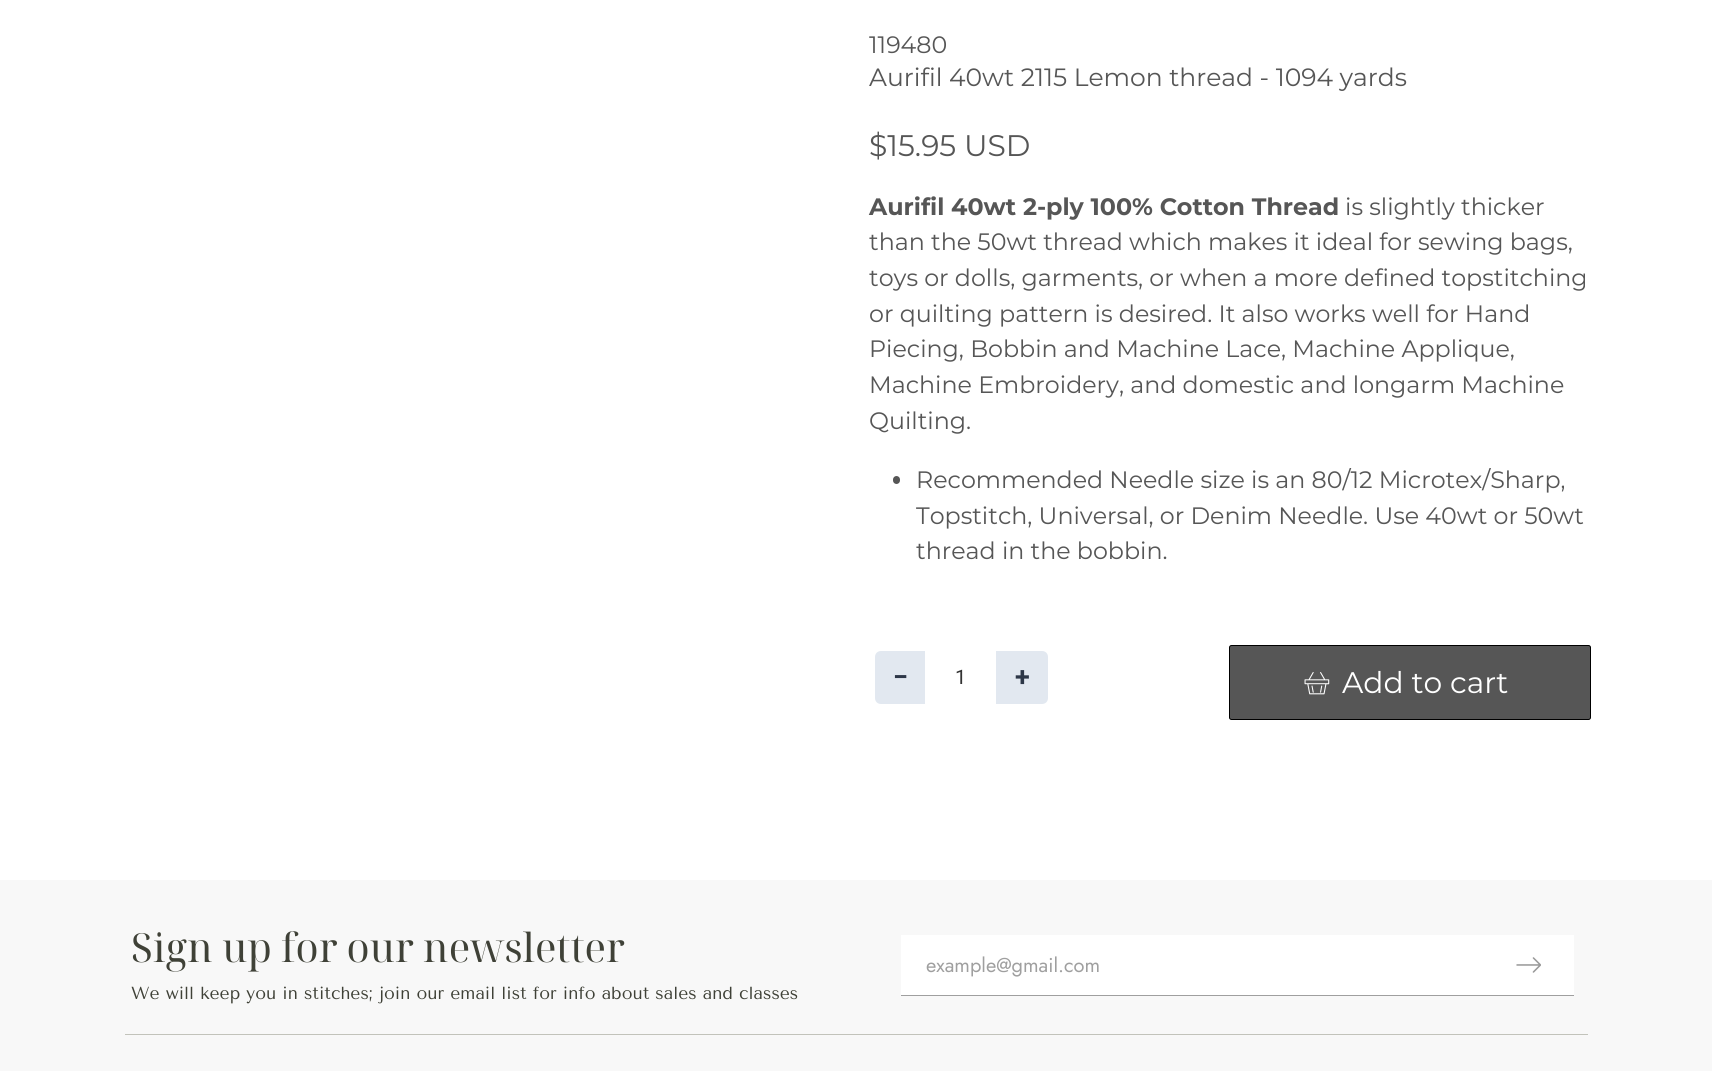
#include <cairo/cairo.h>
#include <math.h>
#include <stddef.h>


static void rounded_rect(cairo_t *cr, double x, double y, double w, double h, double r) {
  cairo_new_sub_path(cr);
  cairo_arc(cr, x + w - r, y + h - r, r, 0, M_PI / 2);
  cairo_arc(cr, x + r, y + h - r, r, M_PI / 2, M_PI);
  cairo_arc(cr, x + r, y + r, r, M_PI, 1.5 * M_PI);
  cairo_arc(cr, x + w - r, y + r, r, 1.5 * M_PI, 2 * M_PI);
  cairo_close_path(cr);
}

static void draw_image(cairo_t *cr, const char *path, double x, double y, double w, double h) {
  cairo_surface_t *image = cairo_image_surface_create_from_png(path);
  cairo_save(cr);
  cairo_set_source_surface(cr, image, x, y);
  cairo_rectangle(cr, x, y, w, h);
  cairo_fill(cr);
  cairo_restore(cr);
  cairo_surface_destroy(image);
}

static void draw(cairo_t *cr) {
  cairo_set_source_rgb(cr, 1, 1, 1);
  cairo_paint(cr);
  cairo_set_source_rgb(cr, 86 / 255.0, 86 / 255.0, 86 / 255.0);
  rounded_rect(cr, 893, 476, 7, 8, 3.5);
  cairo_fill(cr);
  cairo_set_source_rgb(cr, 226 / 255.0, 232 / 255.0, 240 / 255.0);
  cairo_new_path(cr);
  cairo_move_to(cr, 881, 651);
  cairo_line_to(cr, 925, 651);
  cairo_line_to(cr, 925, 704);
  cairo_line_to(cr, 881, 704);
  cairo_curve_to(cr, 877.5, 704, 875, 701.5, 875, 698);
  cairo_line_to(cr, 875, 657);
  cairo_curve_to(cr, 875, 653.5, 877.5, 651, 881, 651);
  cairo_close_path(cr);
  cairo_fill(cr);
  cairo_new_path(cr);
  cairo_move_to(cr, 996, 651);
  cairo_line_to(cr, 1042, 651);
  cairo_curve_to(cr, 1045.5, 651, 1048, 653.5, 1048, 657);
  cairo_line_to(cr, 1048, 698);
  cairo_curve_to(cr, 1048, 701.5, 1045.5, 704, 1042, 704);
  cairo_line_to(cr, 996, 704);
  cairo_close_path(cr);
  cairo_fill(cr);
  cairo_set_source_rgb(cr, 86 / 255.0, 86 / 255.0, 86 / 255.0);
  rounded_rect(cr, 1229.5, 645.5, 361, 74, 2);
  cairo_fill_preserve(cr);
  cairo_set_source_rgb(cr, 0, 0, 0);
  cairo_set_line_width(cr, 1);
  cairo_stroke(cr);
  draw_image(cr, "images/1.png", 1304, 672, 26, 23);
  cairo_set_source_rgb(cr, 248 / 255.0, 248 / 255.0, 248 / 255.0);
  cairo_rectangle(cr, 0, 880, 1712, 191);
  cairo_fill(cr);
  cairo_set_source_rgb(cr, 1, 1, 1);
  cairo_rectangle(cr, 901, 935, 673, 60);
  cairo_fill(cr);
  cairo_set_source_rgb(cr, 159 / 255.0, 159 / 255.0, 159 / 255.0);
  cairo_rectangle(cr, 901, 995, 673, 1);
  cairo_fill(cr);
  draw_image(cr, "images/2.png", 1516, 957, 25, 16);
  cairo_set_source_rgb(cr, 194 / 255.0, 195 / 255.0, 187 / 255.0);
  cairo_rectangle(cr, 125, 1034, 1463, 1);
  cairo_fill(cr);
  cairo_select_font_face(cr, "Montserrat", CAIRO_FONT_SLANT_NORMAL, CAIRO_FONT_WEIGHT_NORMAL);
  cairo_set_font_size(cr, 23.75);
  cairo_set_source_rgb(cr, 86 / 255.0, 86 / 255.0, 86 / 255.0);
  cairo_move_to(cr, 869, 53);
  cairo_show_text(cr, "119480");
  cairo_set_font_size(cr, 25);
  cairo_move_to(cr, 869, 86);
  cairo_show_text(cr, "Aurifil 40wt 2115 Lemon thread - 1094 yards");
  cairo_set_font_size(cr, 29.75);
  cairo_move_to(cr, 869, 156);
  cairo_show_text(cr, "$15.95 USD");
  cairo_select_font_face(cr, "Montserrat", CAIRO_FONT_SLANT_NORMAL, CAIRO_FONT_WEIGHT_BOLD);
  cairo_set_font_size(cr, 23.75);
  cairo_move_to(cr, 869, 215);
  cairo_show_text(cr, "Aurifil 40wt 2-ply 100% Cotton Thread");
  cairo_select_font_face(cr, "Montserrat", CAIRO_FONT_SLANT_NORMAL, CAIRO_FONT_WEIGHT_NORMAL);
  cairo_move_to(cr, 1345, 215);
  cairo_show_text(cr, "is slightly thicker");
  cairo_move_to(cr, 869, 250);
  cairo_show_text(cr, "than the 50wt thread which makes it ideal for sewing bags,");
  cairo_move_to(cr, 869, 286);
  cairo_show_text(cr, "toys or dolls, garments, or when a more defined topstitching");
  cairo_move_to(cr, 869, 322);
  cairo_show_text(cr, "or quilting pattern is desired. It also works well for Hand");
  cairo_move_to(cr, 869, 357);
  cairo_show_text(cr, "Piecing, Bobbin and Machine Lace, Machine Applique,");
  cairo_move_to(cr, 869, 393);
  cairo_show_text(cr, "Machine Embroidery, and domestic and longarm Machine");
  cairo_move_to(cr, 869, 429);
  cairo_show_text(cr, "Quilting.");
  cairo_move_to(cr, 916, 488);
  cairo_show_text(cr, "Recommended Needle size is an 80/12 Microtex/Sharp,");
  cairo_move_to(cr, 916, 524);
  cairo_show_text(cr, "Topstitch, Universal, or Denim Needle. Use 40wt or 50wt");
  cairo_move_to(cr, 916, 559);
  cairo_show_text(cr, "thread in the bobbin.");
  cairo_select_font_face(cr, "Roboto", CAIRO_FONT_SLANT_NORMAL, CAIRO_FONT_WEIGHT_BOLD);
  cairo_set_font_size(cr, 27);
  cairo_set_source_rgb(cr, 45 / 255.0, 55 / 255.0, 72 / 255.0);
  cairo_move_to(cr, 893, 686);
  cairo_show_text(cr, "−");
  cairo_select_font_face(cr, "Roboto", CAIRO_FONT_SLANT_NORMAL, CAIRO_FONT_WEIGHT_NORMAL);
  cairo_set_font_size(cr, 20);
  cairo_set_source_rgb(cr, 51 / 255.0, 51 / 255.0, 51 / 255.0);
  cairo_move_to(cr, 955, 684);
  cairo_show_text(cr, "1");
  cairo_select_font_face(cr, "Roboto", CAIRO_FONT_SLANT_NORMAL, CAIRO_FONT_WEIGHT_BOLD);
  cairo_set_font_size(cr, 27);
  cairo_set_source_rgb(cr, 45 / 255.0, 55 / 255.0, 72 / 255.0);
  cairo_move_to(cr, 1015, 686);
  cairo_show_text(cr, "+");
  cairo_select_font_face(cr, "Montserrat", CAIRO_FONT_SLANT_NORMAL, CAIRO_FONT_WEIGHT_NORMAL);
  cairo_set_font_size(cr, 29.75);
  cairo_set_source_rgb(cr, 1, 1, 1);
  cairo_move_to(cr, 1342, 693);
  cairo_show_text(cr, "Add to cart");
  cairo_select_font_face(cr, "Noto Serif Display", CAIRO_FONT_SLANT_NORMAL, CAIRO_FONT_WEIGHT_NORMAL);
  cairo_set_font_size(cr, 40);
  cairo_set_source_rgb(cr, 63 / 255.0, 65 / 255.0, 55 / 255.0);
  cairo_move_to(cr, 131, 962);
  cairo_show_text(cr, "Sign up for our newsletter");
  cairo_select_font_face(cr, "Tenor Sans", CAIRO_FONT_SLANT_NORMAL, CAIRO_FONT_WEIGHT_NORMAL);
  cairo_set_font_size(cr, 17.5);
  cairo_move_to(cr, 131, 999);
  cairo_show_text(cr, "We will keep you in stitches; join our email list for info about sales and classes");
  cairo_select_font_face(cr, "Jost", CAIRO_FONT_SLANT_NORMAL, CAIRO_FONT_WEIGHT_NORMAL);
  cairo_set_font_size(cr, 20);
  cairo_set_source_rgb(cr, 159 / 255.0, 159 / 255.0, 159 / 255.0);
  cairo_move_to(cr, 926, 972);
  cairo_show_text(cr, "example@gmail.com");
}

int main(void) {
  cairo_surface_t *surface = cairo_image_surface_create(CAIRO_FORMAT_RGB24, 1712, 1071);
  cairo_t *cr = cairo_create(surface);
  cairo_font_options_t *options = cairo_font_options_create();
  cairo_font_options_set_hint_metrics(options, CAIRO_HINT_METRICS_OFF);
  cairo_font_options_set_hint_style(options, CAIRO_HINT_STYLE_NONE);
  cairo_set_font_options(cr, options);
  cairo_set_miter_limit(cr, 4);
  draw(cr);
  cairo_surface_write_to_png(surface, "out.png");
  cairo_font_options_destroy(options);
  cairo_destroy(cr);
  cairo_surface_destroy(surface);
  return 0;
}
